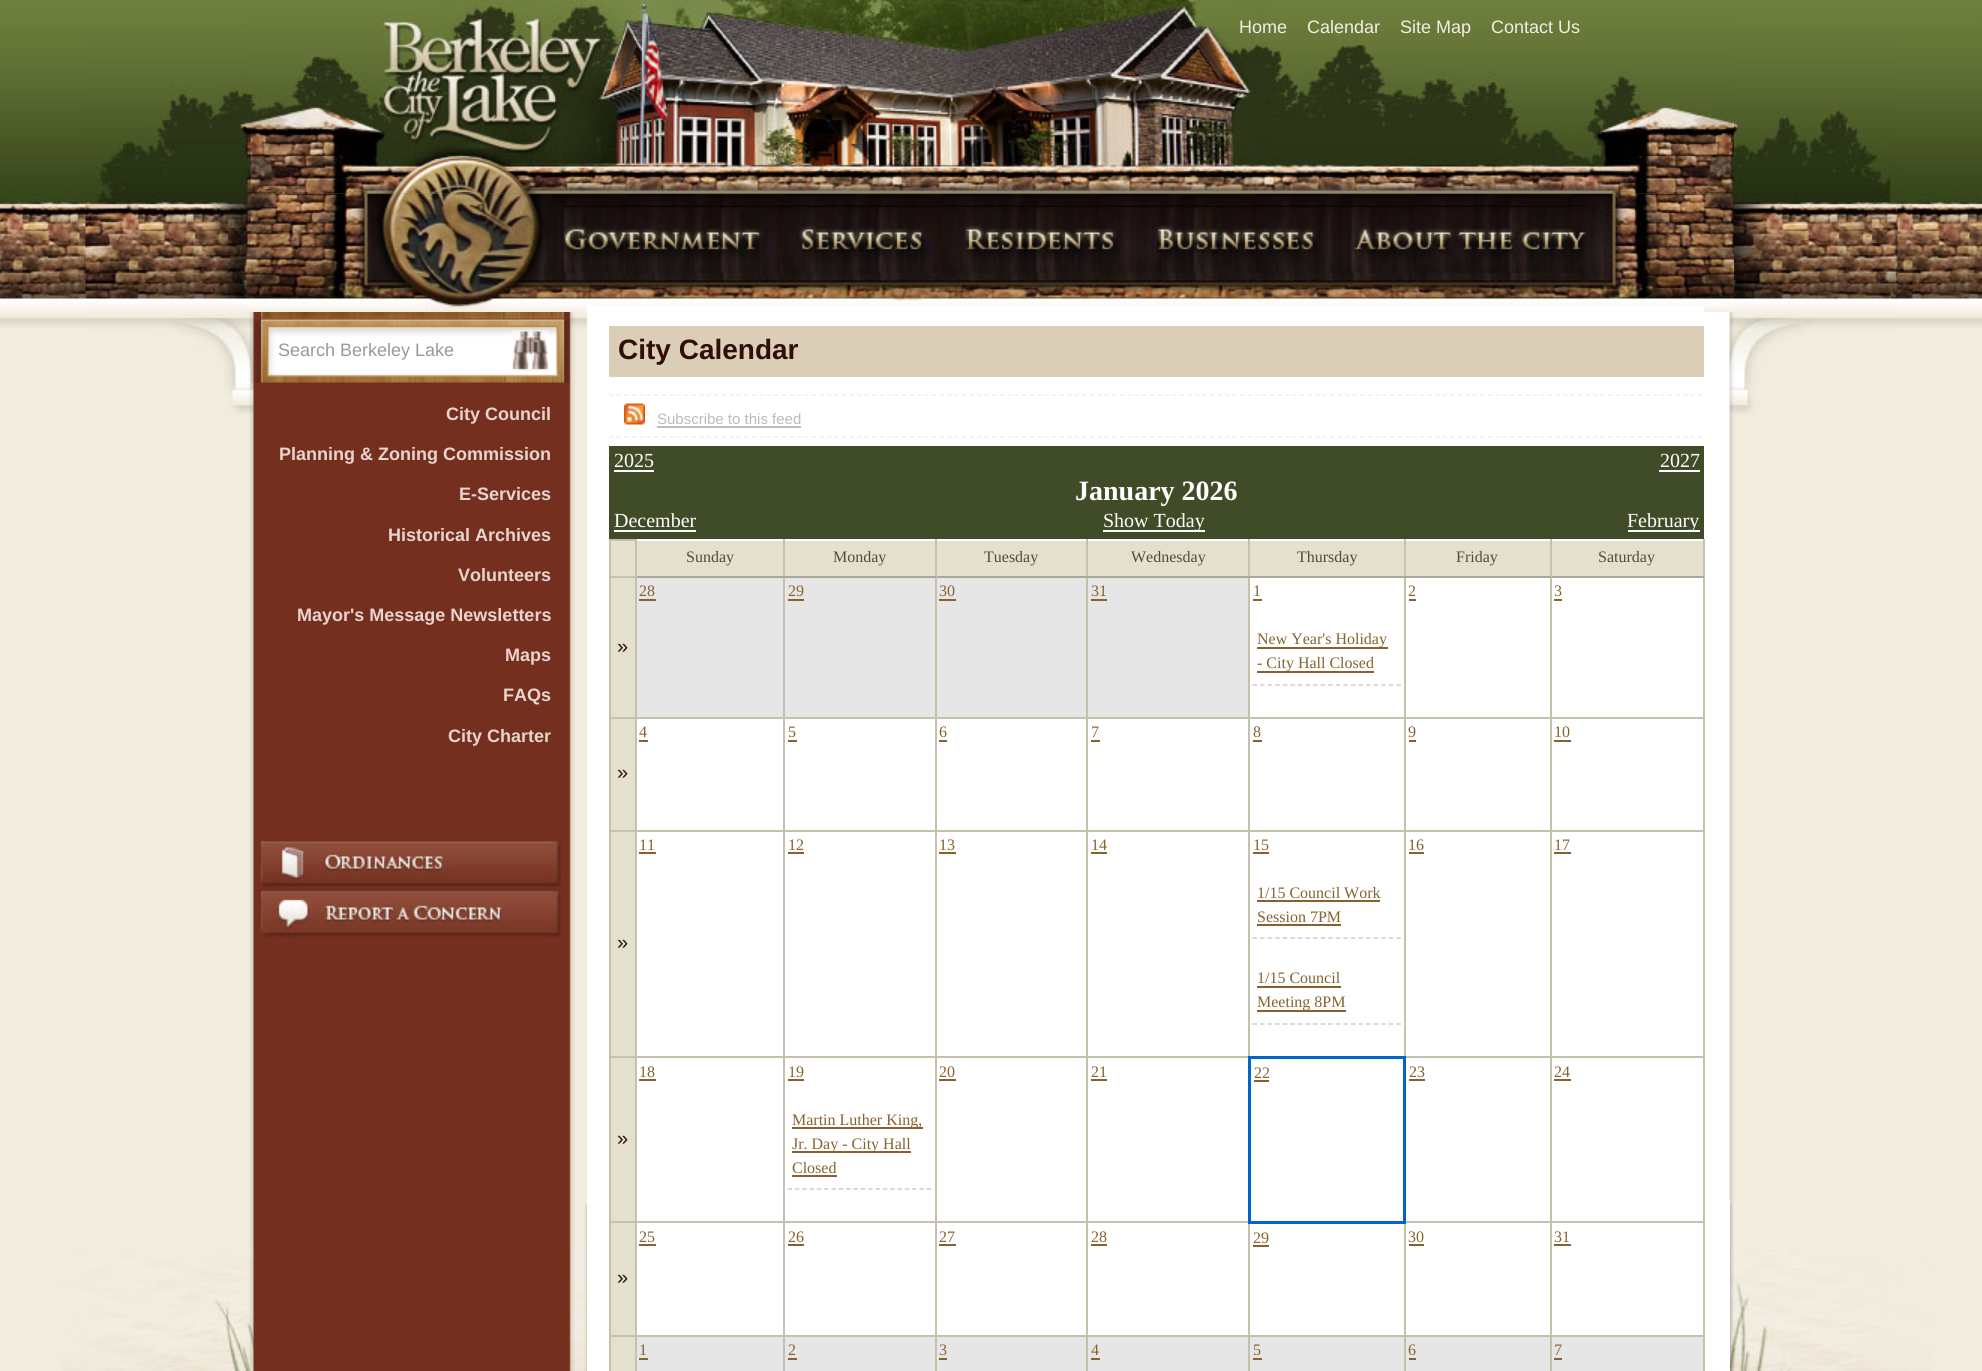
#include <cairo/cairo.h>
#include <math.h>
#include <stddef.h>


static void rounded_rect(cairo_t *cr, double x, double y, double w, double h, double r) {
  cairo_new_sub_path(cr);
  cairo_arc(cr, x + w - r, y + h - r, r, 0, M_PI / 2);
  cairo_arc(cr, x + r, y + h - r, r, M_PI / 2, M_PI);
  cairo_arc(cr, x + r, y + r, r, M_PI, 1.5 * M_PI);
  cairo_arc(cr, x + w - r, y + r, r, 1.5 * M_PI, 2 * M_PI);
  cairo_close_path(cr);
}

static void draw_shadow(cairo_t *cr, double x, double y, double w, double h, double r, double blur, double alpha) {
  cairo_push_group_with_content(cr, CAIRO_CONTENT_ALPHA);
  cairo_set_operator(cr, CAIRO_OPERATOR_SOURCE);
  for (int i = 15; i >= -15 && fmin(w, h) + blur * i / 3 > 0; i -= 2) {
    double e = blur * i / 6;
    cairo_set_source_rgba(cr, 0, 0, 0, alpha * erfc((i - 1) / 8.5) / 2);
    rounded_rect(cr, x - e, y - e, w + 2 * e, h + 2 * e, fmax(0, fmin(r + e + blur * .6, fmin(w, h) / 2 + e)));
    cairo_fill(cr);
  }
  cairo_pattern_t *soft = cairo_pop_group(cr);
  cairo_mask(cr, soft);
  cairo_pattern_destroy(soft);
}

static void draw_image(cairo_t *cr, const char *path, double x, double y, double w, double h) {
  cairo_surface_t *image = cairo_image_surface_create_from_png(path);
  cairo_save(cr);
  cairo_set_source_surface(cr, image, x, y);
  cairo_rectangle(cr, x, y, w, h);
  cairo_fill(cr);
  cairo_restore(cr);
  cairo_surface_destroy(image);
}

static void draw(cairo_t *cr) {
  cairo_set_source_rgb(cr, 241 / 255.0, 236 / 255.0, 222 / 255.0);
  cairo_paint(cr);
  draw_image(cr, "images/1.png", 61, 1247, 1872, 124);
  draw_image(cr, "images/2.png", 0, 0, 1982, 327);
  draw_image(cr, "images/3.png", 85, 30, 1813, 385);
  draw_image(cr, "images/5.png", 249, 193, 1485, 113);
  draw_image(cr, "images/4.png", 249, 0, 1485, 194);
  draw_image(cr, "images/6.png", 564, 205, 237, 68);
  draw_image(cr, "images/7.png", 801, 205, 165, 68);
  draw_image(cr, "images/8.png", 966, 205, 192, 68);
  draw_image(cr, "images/9.png", 1158, 205, 197, 68);
  draw_image(cr, "images/10.png", 1354, 205, 232, 68);
  draw_image(cr, "images/11.png", 249, 312, 1485, 1059);
  draw_image(cr, "images/12.png", 261, 312, 308, 12);
  draw_image(cr, "images/13.png", 250, 319, 320, 64);
  cairo_set_source_rgb(cr, 239 / 255.0, 239 / 255.0, 239 / 255.0);
  cairo_rectangle(cr, 512, 370, 37, 1);
  cairo_fill(cr);
  draw_image(cr, "images/14.png", 511, 330, 38, 41);
  draw_image(cr, "images/15.png", 259, 839, 302, 48);
  draw_image(cr, "images/16.png", 259, 888, 302, 50);
  cairo_set_source_rgb(cr, 1, 1, 1);
  cairo_rectangle(cr, 587, 306, 1117, 894);
  cairo_fill(cr);
  cairo_set_source_rgb(cr, 218 / 255.0, 206 / 255.0, 183 / 255.0);
  cairo_rectangle(cr, 609, 326, 1095, 51);
  cairo_fill(cr);
  cairo_new_path(cr);
  cairo_move_to(cr, 609, 395);
  cairo_line_to(cr, 1704, 395);
  cairo_set_source_rgb(cr, 238 / 255.0, 238 / 255.0, 238 / 255.0);
  cairo_set_line_width(cr, 1.5);
  cairo_set_dash(cr, (double[]){4.5, 3.01}, 2, 0);
  cairo_stroke(cr);
  cairo_new_path(cr);
  cairo_move_to(cr, 609, 437);
  cairo_line_to(cr, 1704, 437);
  cairo_stroke(cr);
  draw_image(cr, "images/17.png", 624, 403, 21, 22);
  cairo_set_source_rgb(cr, 187 / 255.0, 187 / 255.0, 187 / 255.0);
  cairo_rectangle(cr, 657, 426, 144, 2);
  cairo_fill(cr);
  cairo_set_source_rgb(cr, 64 / 255.0, 76 / 255.0, 39 / 255.0);
  cairo_rectangle(cr, 609, 446, 1095, 93);
  cairo_fill(cr);
  cairo_set_source_rgb(cr, 1, 1, 1);
  cairo_rectangle(cr, 614, 470, 40, 2);
  cairo_fill(cr);
  cairo_rectangle(cr, 1659, 470, 41, 2);
  cairo_fill(cr);
  cairo_rectangle(cr, 614, 530, 82, 2);
  cairo_fill(cr);
  cairo_rectangle(cr, 1103, 530, 102, 2);
  cairo_fill(cr);
  cairo_rectangle(cr, 1628, 530, 72, 2);
  cairo_fill(cr);
  cairo_set_source_rgb(cr, 227 / 255.0, 224 / 255.0, 205 / 255.0);
  cairo_rectangle(cr, 611, 541, 24, 35);
  cairo_fill(cr);
  cairo_set_source_rgb(cr, 198 / 255.0, 193 / 255.0, 172 / 255.0);
  cairo_rectangle(cr, 609, 539, 27, 2);
  cairo_fill(cr);
  cairo_rectangle(cr, 1550, 717, 154, 2);
  cairo_fill(cr);
  cairo_rectangle(cr, 1550, 830, 154, 2);
  cairo_fill(cr);
  cairo_rectangle(cr, 1550, 1056, 154, 2);
  cairo_fill(cr);
  cairo_set_source_rgb(cr, 134 / 255.0, 130 / 255.0, 118 / 255.0);
  draw_shadow(cr, 587, 1205, 1143, 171, 0, 1.5, 0.65);
  cairo_set_source_rgb(cr, 1, 1, 1);
  cairo_rectangle(cr, 587, 1200, 1143, 171);
  cairo_fill(cr);
  cairo_set_source_rgb(cr, 198 / 255.0, 193 / 255.0, 172 / 255.0);
  cairo_rectangle(cr, 1550, 1221, 154, 2);
  cairo_fill(cr);
  cairo_rectangle(cr, 1550, 1335, 154, 2);
  cairo_fill(cr);
  cairo_rectangle(cr, 1550, 1335, 2, 36);
  cairo_fill(cr);
  cairo_rectangle(cr, 1404, 1335, 147, 2);
  cairo_fill(cr);
  cairo_rectangle(cr, 1550, 1221, 2, 116);
  cairo_fill(cr);
  cairo_rectangle(cr, 1404, 1221, 147, 2);
  cairo_fill(cr);
  cairo_rectangle(cr, 1550, 1056, 2, 167);
  cairo_fill(cr);
  cairo_rectangle(cr, 1404, 1056, 147, 2);
  cairo_fill(cr);
  cairo_rectangle(cr, 1550, 830, 2, 228);
  cairo_fill(cr);
  cairo_rectangle(cr, 1404, 830, 147, 2);
  cairo_fill(cr);
  cairo_rectangle(cr, 1550, 717, 2, 114);
  cairo_fill(cr);
  cairo_rectangle(cr, 1404, 717, 147, 2);
  cairo_fill(cr);
  cairo_rectangle(cr, 1550, 576, 2, 143);
  cairo_fill(cr);
  cairo_rectangle(cr, 1703, 1335, 2, 36);
  cairo_fill(cr);
  cairo_rectangle(cr, 1703, 1221, 2, 116);
  cairo_fill(cr);
  cairo_rectangle(cr, 1703, 1056, 2, 167);
  cairo_fill(cr);
  cairo_rectangle(cr, 1703, 830, 2, 228);
  cairo_fill(cr);
  cairo_rectangle(cr, 1703, 539, 2, 292);
  cairo_fill(cr);
  cairo_set_source_rgb(cr, 172 / 255.0, 168 / 255.0, 153 / 255.0);
  cairo_rectangle(cr, 1550, 576, 154, 2);
  cairo_fill(cr);
  cairo_set_source_rgb(cr, 198 / 255.0, 193 / 255.0, 172 / 255.0);
  cairo_rectangle(cr, 1550, 539, 2, 39);
  cairo_fill(cr);
  cairo_rectangle(cr, 1404, 830, 2, 228);
  cairo_fill(cr);
  cairo_rectangle(cr, 1248, 830, 158, 2);
  cairo_fill(cr);
  cairo_rectangle(cr, 1404, 717, 2, 114);
  cairo_fill(cr);
  cairo_rectangle(cr, 1248, 717, 158, 2);
  cairo_fill(cr);
  cairo_rectangle(cr, 1404, 576, 2, 143);
  cairo_fill(cr);
  cairo_set_source_rgb(cr, 172 / 255.0, 168 / 255.0, 153 / 255.0);
  cairo_rectangle(cr, 1404, 576, 147, 2);
  cairo_fill(cr);
  cairo_set_source_rgb(cr, 198 / 255.0, 193 / 255.0, 172 / 255.0);
  cairo_rectangle(cr, 1404, 539, 2, 39);
  cairo_fill(cr);
  cairo_rectangle(cr, 1086, 1056, 164, 2);
  cairo_fill(cr);
  cairo_rectangle(cr, 1248, 830, 2, 228);
  cairo_fill(cr);
  cairo_rectangle(cr, 1086, 830, 164, 2);
  cairo_fill(cr);
  cairo_rectangle(cr, 1248, 717, 2, 114);
  cairo_fill(cr);
  cairo_rectangle(cr, 1086, 717, 164, 2);
  cairo_fill(cr);
  cairo_rectangle(cr, 1248, 576, 2, 143);
  cairo_fill(cr);
  cairo_set_source_rgb(cr, 172 / 255.0, 168 / 255.0, 153 / 255.0);
  cairo_rectangle(cr, 1248, 576, 158, 2);
  cairo_fill(cr);
  cairo_set_source_rgb(cr, 198 / 255.0, 193 / 255.0, 172 / 255.0);
  cairo_rectangle(cr, 1248, 539, 2, 39);
  cairo_fill(cr);
  cairo_rectangle(cr, 1404, 1335, 2, 36);
  cairo_fill(cr);
  cairo_rectangle(cr, 1248, 1335, 158, 2);
  cairo_fill(cr);
  cairo_rectangle(cr, 1248, 1335, 2, 36);
  cairo_fill(cr);
  cairo_rectangle(cr, 1086, 1335, 164, 2);
  cairo_fill(cr);
  cairo_rectangle(cr, 1248, 1221, 2, 116);
  cairo_fill(cr);
  cairo_rectangle(cr, 1086, 1221, 164, 2);
  cairo_fill(cr);
  cairo_rectangle(cr, 1086, 1335, 2, 36);
  cairo_fill(cr);
  cairo_rectangle(cr, 935, 1335, 153, 2);
  cairo_fill(cr);
  cairo_rectangle(cr, 1086, 1221, 2, 116);
  cairo_fill(cr);
  cairo_rectangle(cr, 935, 1221, 153, 2);
  cairo_fill(cr);
  cairo_rectangle(cr, 1086, 1056, 2, 167);
  cairo_fill(cr);
  cairo_rectangle(cr, 935, 1056, 153, 2);
  cairo_fill(cr);
  cairo_rectangle(cr, 1086, 830, 2, 228);
  cairo_fill(cr);
  cairo_rectangle(cr, 935, 830, 153, 2);
  cairo_fill(cr);
  cairo_rectangle(cr, 1086, 717, 2, 114);
  cairo_fill(cr);
  cairo_rectangle(cr, 935, 717, 153, 2);
  cairo_fill(cr);
  cairo_rectangle(cr, 1086, 576, 2, 143);
  cairo_fill(cr);
  cairo_set_source_rgb(cr, 172 / 255.0, 168 / 255.0, 153 / 255.0);
  cairo_rectangle(cr, 1086, 576, 164, 2);
  cairo_fill(cr);
  cairo_set_source_rgb(cr, 198 / 255.0, 193 / 255.0, 172 / 255.0);
  cairo_rectangle(cr, 1086, 539, 2, 39);
  cairo_fill(cr);
  cairo_rectangle(cr, 935, 1335, 2, 36);
  cairo_fill(cr);
  cairo_rectangle(cr, 783, 1335, 153, 2);
  cairo_fill(cr);
  cairo_rectangle(cr, 935, 1221, 2, 116);
  cairo_fill(cr);
  cairo_rectangle(cr, 783, 1221, 153, 2);
  cairo_fill(cr);
  cairo_rectangle(cr, 935, 1056, 2, 167);
  cairo_fill(cr);
  cairo_rectangle(cr, 783, 1056, 153, 2);
  cairo_fill(cr);
  cairo_rectangle(cr, 935, 830, 2, 228);
  cairo_fill(cr);
  cairo_rectangle(cr, 783, 830, 153, 2);
  cairo_fill(cr);
  cairo_rectangle(cr, 935, 717, 2, 114);
  cairo_fill(cr);
  cairo_rectangle(cr, 783, 717, 153, 2);
  cairo_fill(cr);
  cairo_rectangle(cr, 935, 576, 2, 143);
  cairo_fill(cr);
  cairo_set_source_rgb(cr, 172 / 255.0, 168 / 255.0, 153 / 255.0);
  cairo_rectangle(cr, 935, 576, 153, 2);
  cairo_fill(cr);
  cairo_set_source_rgb(cr, 198 / 255.0, 193 / 255.0, 172 / 255.0);
  cairo_rectangle(cr, 935, 539, 2, 39);
  cairo_fill(cr);
  cairo_rectangle(cr, 783, 1335, 2, 36);
  cairo_fill(cr);
  cairo_rectangle(cr, 635, 1335, 150, 2);
  cairo_fill(cr);
  cairo_rectangle(cr, 783, 1221, 2, 116);
  cairo_fill(cr);
  cairo_rectangle(cr, 635, 1221, 150, 2);
  cairo_fill(cr);
  cairo_rectangle(cr, 783, 1056, 2, 167);
  cairo_fill(cr);
  cairo_rectangle(cr, 635, 1056, 150, 2);
  cairo_fill(cr);
  cairo_rectangle(cr, 783, 830, 2, 228);
  cairo_fill(cr);
  cairo_rectangle(cr, 635, 830, 150, 2);
  cairo_fill(cr);
  cairo_rectangle(cr, 783, 717, 2, 114);
  cairo_fill(cr);
  cairo_rectangle(cr, 635, 717, 150, 2);
  cairo_fill(cr);
  cairo_rectangle(cr, 783, 576, 2, 143);
  cairo_fill(cr);
  cairo_set_source_rgb(cr, 172 / 255.0, 168 / 255.0, 153 / 255.0);
  cairo_rectangle(cr, 783, 576, 153, 2);
  cairo_fill(cr);
  cairo_set_source_rgb(cr, 198 / 255.0, 193 / 255.0, 172 / 255.0);
  cairo_rectangle(cr, 783, 539, 2, 39);
  cairo_fill(cr);
  cairo_rectangle(cr, 635, 1335, 2, 36);
  cairo_fill(cr);
  cairo_rectangle(cr, 609, 1335, 27, 2);
  cairo_fill(cr);
  cairo_rectangle(cr, 635, 1221, 2, 116);
  cairo_fill(cr);
  cairo_rectangle(cr, 609, 1221, 27, 2);
  cairo_fill(cr);
  cairo_rectangle(cr, 635, 1056, 2, 167);
  cairo_fill(cr);
  cairo_rectangle(cr, 609, 1056, 27, 2);
  cairo_fill(cr);
  cairo_rectangle(cr, 635, 830, 2, 228);
  cairo_fill(cr);
  cairo_rectangle(cr, 609, 830, 27, 2);
  cairo_fill(cr);
  cairo_rectangle(cr, 635, 717, 2, 114);
  cairo_fill(cr);
  cairo_rectangle(cr, 609, 717, 27, 2);
  cairo_fill(cr);
  cairo_rectangle(cr, 635, 576, 2, 143);
  cairo_fill(cr);
  cairo_rectangle(cr, 609, 576, 27, 2);
  cairo_fill(cr);
  cairo_set_source_rgb(cr, 172 / 255.0, 168 / 255.0, 153 / 255.0);
  cairo_rectangle(cr, 635, 576, 150, 2);
  cairo_fill(cr);
  cairo_set_source_rgb(cr, 198 / 255.0, 193 / 255.0, 172 / 255.0);
  cairo_rectangle(cr, 635, 539, 2, 39);
  cairo_fill(cr);
  cairo_rectangle(cr, 609, 1335, 2, 36);
  cairo_fill(cr);
  cairo_rectangle(cr, 609, 1221, 2, 116);
  cairo_fill(cr);
  cairo_rectangle(cr, 609, 1056, 2, 167);
  cairo_fill(cr);
  cairo_rectangle(cr, 609, 830, 2, 228);
  cairo_fill(cr);
  cairo_rectangle(cr, 609, 717, 2, 114);
  cairo_fill(cr);
  cairo_rectangle(cr, 609, 576, 2, 143);
  cairo_fill(cr);
  cairo_rectangle(cr, 609, 539, 2, 39);
  cairo_fill(cr);
  cairo_set_source_rgb(cr, 227 / 255.0, 224 / 255.0, 205 / 255.0);
  cairo_rectangle(cr, 637, 541, 146, 35);
  cairo_fill(cr);
  cairo_rectangle(cr, 785, 541, 150, 35);
  cairo_fill(cr);
  cairo_rectangle(cr, 937, 541, 149, 35);
  cairo_fill(cr);
  cairo_rectangle(cr, 1088, 541, 160, 35);
  cairo_fill(cr);
  cairo_rectangle(cr, 1250, 541, 154, 35);
  cairo_fill(cr);
  cairo_rectangle(cr, 1406, 541, 144, 35);
  cairo_fill(cr);
  cairo_rectangle(cr, 1552, 541, 151, 35);
  cairo_fill(cr);
  cairo_set_source_rgb(cr, 230 / 255.0, 230 / 255.0, 230 / 255.0);
  cairo_rectangle(cr, 637, 578, 146, 139);
  cairo_fill(cr);
  cairo_set_source_rgb(cr, 133 / 255.0, 98 / 255.0, 47 / 255.0);
  cairo_rectangle(cr, 639, 599, 17, 2);
  cairo_fill(cr);
  cairo_set_source_rgb(cr, 230 / 255.0, 230 / 255.0, 230 / 255.0);
  cairo_rectangle(cr, 785, 578, 150, 139);
  cairo_fill(cr);
  cairo_set_source_rgb(cr, 133 / 255.0, 98 / 255.0, 47 / 255.0);
  cairo_rectangle(cr, 788, 599, 16, 2);
  cairo_fill(cr);
  cairo_set_source_rgb(cr, 230 / 255.0, 230 / 255.0, 230 / 255.0);
  cairo_rectangle(cr, 937, 578, 149, 139);
  cairo_fill(cr);
  cairo_set_source_rgb(cr, 133 / 255.0, 98 / 255.0, 47 / 255.0);
  cairo_rectangle(cr, 939, 599, 17, 2);
  cairo_fill(cr);
  cairo_set_source_rgb(cr, 230 / 255.0, 230 / 255.0, 230 / 255.0);
  cairo_rectangle(cr, 1088, 578, 160, 139);
  cairo_fill(cr);
  cairo_set_source_rgb(cr, 133 / 255.0, 98 / 255.0, 47 / 255.0);
  cairo_rectangle(cr, 1091, 599, 16, 2);
  cairo_fill(cr);
  cairo_rectangle(cr, 1253, 599, 9, 2);
  cairo_fill(cr);
  cairo_new_path(cr);
  cairo_move_to(cr, 1252.5, 685);
  cairo_line_to(cr, 1401, 685);
  cairo_set_source_rgb(cr, 204 / 255.0, 204 / 255.0, 204 / 255.0);
  cairo_set_dash(cr, (double[]){4.5, 3.07}, 2, 0);
  cairo_stroke(cr);
  cairo_set_source_rgb(cr, 133 / 255.0, 98 / 255.0, 47 / 255.0);
  cairo_rectangle(cr, 1257, 647, 131, 2);
  cairo_fill(cr);
  cairo_rectangle(cr, 1257, 671, 117, 2);
  cairo_fill(cr);
  cairo_rectangle(cr, 1409, 599, 7, 2);
  cairo_fill(cr);
  cairo_rectangle(cr, 1554, 599, 8, 2);
  cairo_fill(cr);
  cairo_set_source_rgb(cr, 227 / 255.0, 224 / 255.0, 205 / 255.0);
  cairo_rectangle(cr, 611, 578, 24, 139);
  cairo_fill(cr);
  cairo_set_source_rgb(cr, 133 / 255.0, 98 / 255.0, 47 / 255.0);
  cairo_rectangle(cr, 639, 740, 9, 2);
  cairo_fill(cr);
  cairo_rectangle(cr, 788, 740, 9, 2);
  cairo_fill(cr);
  cairo_rectangle(cr, 939, 740, 8, 2);
  cairo_fill(cr);
  cairo_rectangle(cr, 1091, 740, 9, 2);
  cairo_fill(cr);
  cairo_rectangle(cr, 1253, 740, 9, 2);
  cairo_fill(cr);
  cairo_rectangle(cr, 1409, 740, 7, 2);
  cairo_fill(cr);
  cairo_rectangle(cr, 1554, 740, 17, 2);
  cairo_fill(cr);
  cairo_set_source_rgb(cr, 227 / 255.0, 224 / 255.0, 205 / 255.0);
  cairo_rectangle(cr, 611, 719, 24, 111);
  cairo_fill(cr);
  cairo_set_source_rgb(cr, 133 / 255.0, 98 / 255.0, 47 / 255.0);
  cairo_rectangle(cr, 639, 852, 17, 2);
  cairo_fill(cr);
  cairo_rectangle(cr, 788, 852, 16, 2);
  cairo_fill(cr);
  cairo_rectangle(cr, 939, 852, 17, 2);
  cairo_fill(cr);
  cairo_rectangle(cr, 1091, 852, 16, 2);
  cairo_fill(cr);
  cairo_rectangle(cr, 1253, 852, 16, 2);
  cairo_fill(cr);
  cairo_new_path(cr);
  cairo_move_to(cr, 1252.5, 938);
  cairo_line_to(cr, 1401, 938);
  cairo_set_source_rgb(cr, 204 / 255.0, 204 / 255.0, 204 / 255.0);
  cairo_stroke(cr);
  cairo_set_source_rgb(cr, 133 / 255.0, 98 / 255.0, 47 / 255.0);
  cairo_rectangle(cr, 1257, 900, 123, 2);
  cairo_fill(cr);
  cairo_rectangle(cr, 1257, 924, 84, 2);
  cairo_fill(cr);
  cairo_new_path(cr);
  cairo_move_to(cr, 1252.5, 1024);
  cairo_line_to(cr, 1401, 1024);
  cairo_set_source_rgb(cr, 204 / 255.0, 204 / 255.0, 204 / 255.0);
  cairo_stroke(cr);
  cairo_set_source_rgb(cr, 133 / 255.0, 98 / 255.0, 47 / 255.0);
  cairo_rectangle(cr, 1257, 986, 84, 2);
  cairo_fill(cr);
  cairo_rectangle(cr, 1257, 1010, 89, 2);
  cairo_fill(cr);
  cairo_rectangle(cr, 1409, 852, 15, 2);
  cairo_fill(cr);
  cairo_rectangle(cr, 1554, 852, 17, 2);
  cairo_fill(cr);
  cairo_set_source_rgb(cr, 227 / 255.0, 224 / 255.0, 205 / 255.0);
  cairo_rectangle(cr, 611, 832, 24, 224);
  cairo_fill(cr);
  cairo_set_source_rgb(cr, 133 / 255.0, 98 / 255.0, 47 / 255.0);
  cairo_rectangle(cr, 639, 1079, 17, 2);
  cairo_fill(cr);
  cairo_rectangle(cr, 788, 1079, 16, 2);
  cairo_fill(cr);
  cairo_new_path(cr);
  cairo_move_to(cr, 787.5, 1189);
  cairo_line_to(cr, 931.5, 1189);
  cairo_set_source_rgb(cr, 204 / 255.0, 204 / 255.0, 204 / 255.0);
  cairo_set_dash(cr, (double[]){4.5, 2.83}, 2, 0);
  cairo_stroke(cr);
  cairo_set_source_rgb(cr, 133 / 255.0, 98 / 255.0, 47 / 255.0);
  cairo_rectangle(cr, 792, 1127, 131, 2);
  cairo_fill(cr);
  cairo_rectangle(cr, 792, 1151, 119, 2);
  cairo_fill(cr);
  cairo_rectangle(cr, 792, 1175, 45, 2);
  cairo_fill(cr);
  cairo_rectangle(cr, 939, 1079, 17, 2);
  cairo_fill(cr);
  cairo_rectangle(cr, 1091, 1079, 16, 2);
  cairo_fill(cr);
  cairo_set_source_rgb(cr, 0, 102 / 255.0, 204 / 255.0);
  cairo_rectangle(cr, 1248, 1056, 158, 3);
  cairo_fill(cr);
  cairo_set_source_rgb(cr, 198 / 255.0, 193 / 255.0, 172 / 255.0);
  cairo_rectangle(cr, 1404, 1221, 2, 116);
  cairo_fill(cr);
  cairo_set_source_rgb(cr, 0, 102 / 255.0, 204 / 255.0);
  cairo_rectangle(cr, 1403, 1056, 3, 168);
  cairo_fill(cr);
  cairo_rectangle(cr, 1248, 1221, 158, 3);
  cairo_fill(cr);
  cairo_rectangle(cr, 1248, 1056, 3, 168);
  cairo_fill(cr);
  cairo_set_source_rgb(cr, 133 / 255.0, 98 / 255.0, 47 / 255.0);
  cairo_rectangle(cr, 1254, 1080, 15, 2);
  cairo_fill(cr);
  cairo_rectangle(cr, 1409, 1079, 16, 2);
  cairo_fill(cr);
  cairo_rectangle(cr, 1554, 1079, 17, 2);
  cairo_fill(cr);
  cairo_set_source_rgb(cr, 227 / 255.0, 224 / 255.0, 205 / 255.0);
  cairo_rectangle(cr, 611, 1058, 24, 163);
  cairo_fill(cr);
  cairo_set_source_rgb(cr, 133 / 255.0, 98 / 255.0, 47 / 255.0);
  cairo_rectangle(cr, 639, 1244, 17, 2);
  cairo_fill(cr);
  cairo_rectangle(cr, 788, 1244, 16, 2);
  cairo_fill(cr);
  cairo_rectangle(cr, 939, 1244, 17, 2);
  cairo_fill(cr);
  cairo_rectangle(cr, 1091, 1244, 16, 2);
  cairo_fill(cr);
  cairo_rectangle(cr, 1253, 1245, 16, 2);
  cairo_fill(cr);
  cairo_rectangle(cr, 1409, 1244, 15, 2);
  cairo_fill(cr);
  cairo_rectangle(cr, 1554, 1244, 17, 2);
  cairo_fill(cr);
  cairo_set_source_rgb(cr, 227 / 255.0, 224 / 255.0, 205 / 255.0);
  cairo_rectangle(cr, 611, 1223, 24, 112);
  cairo_fill(cr);
  cairo_rectangle(cr, 611, 1337, 24, 34);
  cairo_fill(cr);
  cairo_set_source_rgb(cr, 230 / 255.0, 230 / 255.0, 230 / 255.0);
  cairo_rectangle(cr, 637, 1337, 146, 34);
  cairo_fill(cr);
  cairo_set_source_rgb(cr, 133 / 255.0, 98 / 255.0, 47 / 255.0);
  cairo_rectangle(cr, 639, 1358, 9, 2);
  cairo_fill(cr);
  cairo_set_source_rgb(cr, 230 / 255.0, 230 / 255.0, 230 / 255.0);
  cairo_rectangle(cr, 785, 1337, 150, 34);
  cairo_fill(cr);
  cairo_set_source_rgb(cr, 133 / 255.0, 98 / 255.0, 47 / 255.0);
  cairo_rectangle(cr, 788, 1358, 9, 2);
  cairo_fill(cr);
  cairo_set_source_rgb(cr, 230 / 255.0, 230 / 255.0, 230 / 255.0);
  cairo_rectangle(cr, 937, 1337, 149, 34);
  cairo_fill(cr);
  cairo_set_source_rgb(cr, 133 / 255.0, 98 / 255.0, 47 / 255.0);
  cairo_rectangle(cr, 939, 1358, 8, 2);
  cairo_fill(cr);
  cairo_set_source_rgb(cr, 230 / 255.0, 230 / 255.0, 230 / 255.0);
  cairo_rectangle(cr, 1088, 1337, 160, 34);
  cairo_fill(cr);
  cairo_set_source_rgb(cr, 133 / 255.0, 98 / 255.0, 47 / 255.0);
  cairo_rectangle(cr, 1091, 1358, 9, 2);
  cairo_fill(cr);
  cairo_set_source_rgb(cr, 230 / 255.0, 230 / 255.0, 230 / 255.0);
  cairo_rectangle(cr, 1250, 1337, 154, 34);
  cairo_fill(cr);
  cairo_set_source_rgb(cr, 133 / 255.0, 98 / 255.0, 47 / 255.0);
  cairo_rectangle(cr, 1253, 1358, 9, 2);
  cairo_fill(cr);
  cairo_set_source_rgb(cr, 230 / 255.0, 230 / 255.0, 230 / 255.0);
  cairo_rectangle(cr, 1406, 1337, 144, 34);
  cairo_fill(cr);
  cairo_set_source_rgb(cr, 133 / 255.0, 98 / 255.0, 47 / 255.0);
  cairo_rectangle(cr, 1409, 1358, 7, 2);
  cairo_fill(cr);
  cairo_set_source_rgb(cr, 230 / 255.0, 230 / 255.0, 230 / 255.0);
  cairo_rectangle(cr, 1552, 1337, 151, 34);
  cairo_fill(cr);
  cairo_set_source_rgb(cr, 133 / 255.0, 98 / 255.0, 47 / 255.0);
  cairo_rectangle(cr, 1554, 1358, 8, 2);
  cairo_fill(cr);
  draw_image(cr, "images/18.png", 1705, 1320, 9, 51);
  cairo_select_font_face(cr, "Liberation Sans", CAIRO_FONT_SLANT_NORMAL, CAIRO_FONT_WEIGHT_NORMAL);
  cairo_set_font_size(cr, 18);
  cairo_set_source_rgb(cr, 244 / 255.0, 239 / 255.0, 227 / 255.0);
  cairo_move_to(cr, 1239, 33);
  cairo_show_text(cr, "Home");
  cairo_move_to(cr, 1307, 33);
  cairo_show_text(cr, "Calendar");
  cairo_move_to(cr, 1400, 33);
  cairo_show_text(cr, "Site Map");
  cairo_move_to(cr, 1491, 33);
  cairo_show_text(cr, "Contact Us");
  cairo_set_source_rgb(cr, 153 / 255.0, 153 / 255.0, 153 / 255.0);
  cairo_move_to(cr, 278, 356);
  cairo_show_text(cr, "Search Berkeley Lake");
  cairo_select_font_face(cr, "Liberation Sans", CAIRO_FONT_SLANT_NORMAL, CAIRO_FONT_WEIGHT_BOLD);
  cairo_set_source_rgb(cr, 234 / 255.0, 212 / 255.0, 207 / 255.0);
  cairo_move_to(cr, 446, 420);
  cairo_show_text(cr, "City Council");
  cairo_move_to(cr, 279, 460);
  cairo_show_text(cr, "Planning & Zoning Commission");
  cairo_move_to(cr, 459, 500);
  cairo_show_text(cr, "E-Services");
  cairo_move_to(cr, 388, 541);
  cairo_show_text(cr, "Historical Archives");
  cairo_move_to(cr, 458, 581);
  cairo_show_text(cr, "Volunteers");
  cairo_move_to(cr, 297, 621);
  cairo_show_text(cr, "Mayor's Message Newsletters");
  cairo_move_to(cr, 505, 661);
  cairo_show_text(cr, "Maps");
  cairo_move_to(cr, 503, 701);
  cairo_show_text(cr, "FAQs");
  cairo_move_to(cr, 448, 742);
  cairo_show_text(cr, "City Charter");
  cairo_set_font_size(cr, 28);
  cairo_set_source_rgb(cr, 49 / 255.0, 14 / 255.0, 7 / 255.0);
  cairo_move_to(cr, 618, 359);
  cairo_show_text(cr, "City Calendar");
  cairo_select_font_face(cr, "Liberation Sans", CAIRO_FONT_SLANT_NORMAL, CAIRO_FONT_WEIGHT_NORMAL);
  cairo_set_font_size(cr, 15);
  cairo_set_source_rgb(cr, 187 / 255.0, 187 / 255.0, 187 / 255.0);
  cairo_move_to(cr, 657, 424);
  cairo_show_text(cr, "Subscribe to this feed");
  cairo_select_font_face(cr, "Liberation Serif", CAIRO_FONT_SLANT_NORMAL, CAIRO_FONT_WEIGHT_NORMAL);
  cairo_set_font_size(cr, 20);
  cairo_set_source_rgb(cr, 1, 1, 1);
  cairo_move_to(cr, 614, 467);
  cairo_show_text(cr, "2025");
  cairo_move_to(cr, 1660, 467);
  cairo_show_text(cr, "2027");
  cairo_select_font_face(cr, "Liberation Serif", CAIRO_FONT_SLANT_NORMAL, CAIRO_FONT_WEIGHT_BOLD);
  cairo_set_font_size(cr, 28);
  cairo_move_to(cr, 1075, 500);
  cairo_show_text(cr, "January 2026");
  cairo_select_font_face(cr, "Liberation Serif", CAIRO_FONT_SLANT_NORMAL, CAIRO_FONT_WEIGHT_NORMAL);
  cairo_set_font_size(cr, 20);
  cairo_move_to(cr, 614, 527);
  cairo_show_text(cr, "December");
  cairo_move_to(cr, 1103, 527);
  cairo_show_text(cr, "Show Today");
  cairo_move_to(cr, 1627, 527);
  cairo_show_text(cr, "February");
  cairo_set_font_size(cr, 16);
  cairo_set_source_rgb(cr, 80 / 255.0, 76 / 255.0, 57 / 255.0);
  cairo_move_to(cr, 686, 562);
  cairo_show_text(cr, "Sunday");
  cairo_move_to(cr, 833, 562);
  cairo_show_text(cr, "Monday");
  cairo_move_to(cr, 984, 562);
  cairo_show_text(cr, "Tuesday");
  cairo_move_to(cr, 1131, 562);
  cairo_show_text(cr, "Wednesday");
  cairo_move_to(cr, 1297, 562);
  cairo_show_text(cr, "Thursday");
  cairo_move_to(cr, 1456, 562);
  cairo_show_text(cr, "Friday");
  cairo_move_to(cr, 1598, 562);
  cairo_show_text(cr, "Saturday");
  cairo_set_source_rgb(cr, 133 / 255.0, 98 / 255.0, 47 / 255.0);
  cairo_move_to(cr, 639, 596);
  cairo_show_text(cr, "28");
  cairo_move_to(cr, 788, 596);
  cairo_show_text(cr, "29");
  cairo_move_to(cr, 939, 596);
  cairo_show_text(cr, "30");
  cairo_move_to(cr, 1091, 596);
  cairo_show_text(cr, "31");
  cairo_move_to(cr, 1253, 596);
  cairo_show_text(cr, "1");
  cairo_move_to(cr, 1257, 644);
  cairo_show_text(cr, "New Year's Holiday");
  cairo_move_to(cr, 1257, 668);
  cairo_show_text(cr, "- City Hall Closed");
  cairo_move_to(cr, 1408, 596);
  cairo_show_text(cr, "2");
  cairo_move_to(cr, 1554, 596);
  cairo_show_text(cr, "3");
  cairo_select_font_face(cr, "Liberation Sans", CAIRO_FONT_SLANT_NORMAL, CAIRO_FONT_WEIGHT_NORMAL);
  cairo_set_font_size(cr, 20);
  cairo_set_source_rgb(cr, 49 / 255.0, 14 / 255.0, 7 / 255.0);
  cairo_move_to(cr, 617, 653);
  cairo_show_text(cr, "»");
  cairo_select_font_face(cr, "Liberation Serif", CAIRO_FONT_SLANT_NORMAL, CAIRO_FONT_WEIGHT_NORMAL);
  cairo_set_font_size(cr, 16);
  cairo_set_source_rgb(cr, 133 / 255.0, 98 / 255.0, 47 / 255.0);
  cairo_move_to(cr, 639, 737);
  cairo_show_text(cr, "4");
  cairo_move_to(cr, 788, 737);
  cairo_show_text(cr, "5");
  cairo_move_to(cr, 939, 737);
  cairo_show_text(cr, "6");
  cairo_move_to(cr, 1091, 737);
  cairo_show_text(cr, "7");
  cairo_move_to(cr, 1253, 737);
  cairo_show_text(cr, "8");
  cairo_move_to(cr, 1408, 737);
  cairo_show_text(cr, "9");
  cairo_move_to(cr, 1554, 737);
  cairo_show_text(cr, "10");
  cairo_select_font_face(cr, "Liberation Sans", CAIRO_FONT_SLANT_NORMAL, CAIRO_FONT_WEIGHT_NORMAL);
  cairo_set_font_size(cr, 20);
  cairo_set_source_rgb(cr, 49 / 255.0, 14 / 255.0, 7 / 255.0);
  cairo_move_to(cr, 617, 779);
  cairo_show_text(cr, "»");
  cairo_select_font_face(cr, "Liberation Serif", CAIRO_FONT_SLANT_NORMAL, CAIRO_FONT_WEIGHT_NORMAL);
  cairo_set_font_size(cr, 16);
  cairo_set_source_rgb(cr, 133 / 255.0, 98 / 255.0, 47 / 255.0);
  cairo_move_to(cr, 639, 850);
  cairo_show_text(cr, "11");
  cairo_move_to(cr, 788, 850);
  cairo_show_text(cr, "12");
  cairo_move_to(cr, 939, 850);
  cairo_show_text(cr, "13");
  cairo_move_to(cr, 1091, 850);
  cairo_show_text(cr, "14");
  cairo_move_to(cr, 1253, 850);
  cairo_show_text(cr, "15");
  cairo_move_to(cr, 1257, 898);
  cairo_show_text(cr, "1/15 Council Work");
  cairo_move_to(cr, 1257, 922);
  cairo_show_text(cr, "Session 7PM");
  cairo_move_to(cr, 1257, 983);
  cairo_show_text(cr, "1/15 Council");
  cairo_move_to(cr, 1257, 1007);
  cairo_show_text(cr, "Meeting 8PM");
  cairo_move_to(cr, 1408, 850);
  cairo_show_text(cr, "16");
  cairo_move_to(cr, 1554, 850);
  cairo_show_text(cr, "17");
  cairo_select_font_face(cr, "Liberation Sans", CAIRO_FONT_SLANT_NORMAL, CAIRO_FONT_WEIGHT_NORMAL);
  cairo_set_font_size(cr, 20);
  cairo_set_source_rgb(cr, 49 / 255.0, 14 / 255.0, 7 / 255.0);
  cairo_move_to(cr, 617, 949);
  cairo_show_text(cr, "»");
  cairo_select_font_face(cr, "Liberation Serif", CAIRO_FONT_SLANT_NORMAL, CAIRO_FONT_WEIGHT_NORMAL);
  cairo_set_font_size(cr, 16);
  cairo_set_source_rgb(cr, 133 / 255.0, 98 / 255.0, 47 / 255.0);
  cairo_move_to(cr, 639, 1077);
  cairo_show_text(cr, "18");
  cairo_move_to(cr, 788, 1077);
  cairo_show_text(cr, "19");
  cairo_move_to(cr, 792, 1125);
  cairo_show_text(cr, "Martin Luther King,");
  cairo_move_to(cr, 792, 1149);
  cairo_show_text(cr, "Jr. Day - City Hall");
  cairo_move_to(cr, 792, 1173);
  cairo_show_text(cr, "Closed");
  cairo_move_to(cr, 939, 1077);
  cairo_show_text(cr, "20");
  cairo_move_to(cr, 1091, 1077);
  cairo_show_text(cr, "21");
  cairo_move_to(cr, 1254, 1078);
  cairo_show_text(cr, "22");
  cairo_move_to(cr, 1409, 1077);
  cairo_show_text(cr, "23");
  cairo_move_to(cr, 1554, 1077);
  cairo_show_text(cr, "24");
  cairo_select_font_face(cr, "Liberation Sans", CAIRO_FONT_SLANT_NORMAL, CAIRO_FONT_WEIGHT_NORMAL);
  cairo_set_font_size(cr, 20);
  cairo_set_source_rgb(cr, 49 / 255.0, 14 / 255.0, 7 / 255.0);
  cairo_move_to(cr, 617, 1145);
  cairo_show_text(cr, "»");
  cairo_select_font_face(cr, "Liberation Serif", CAIRO_FONT_SLANT_NORMAL, CAIRO_FONT_WEIGHT_NORMAL);
  cairo_set_font_size(cr, 16);
  cairo_set_source_rgb(cr, 133 / 255.0, 98 / 255.0, 47 / 255.0);
  cairo_move_to(cr, 639, 1242);
  cairo_show_text(cr, "25");
  cairo_move_to(cr, 788, 1242);
  cairo_show_text(cr, "26");
  cairo_move_to(cr, 939, 1242);
  cairo_show_text(cr, "27");
  cairo_move_to(cr, 1091, 1242);
  cairo_show_text(cr, "28");
  cairo_move_to(cr, 1253, 1243);
  cairo_show_text(cr, "29");
  cairo_move_to(cr, 1408, 1242);
  cairo_show_text(cr, "30");
  cairo_move_to(cr, 1554, 1242);
  cairo_show_text(cr, "31");
  cairo_select_font_face(cr, "Liberation Sans", CAIRO_FONT_SLANT_NORMAL, CAIRO_FONT_WEIGHT_NORMAL);
  cairo_set_font_size(cr, 20);
  cairo_set_source_rgb(cr, 49 / 255.0, 14 / 255.0, 7 / 255.0);
  cairo_move_to(cr, 617, 1284);
  cairo_show_text(cr, "»");
  cairo_select_font_face(cr, "Liberation Serif", CAIRO_FONT_SLANT_NORMAL, CAIRO_FONT_WEIGHT_NORMAL);
  cairo_set_font_size(cr, 16);
  cairo_set_source_rgb(cr, 133 / 255.0, 98 / 255.0, 47 / 255.0);
  cairo_move_to(cr, 639, 1355);
  cairo_show_text(cr, "1");
  cairo_move_to(cr, 788, 1355);
  cairo_show_text(cr, "2");
  cairo_move_to(cr, 939, 1355);
  cairo_show_text(cr, "3");
  cairo_move_to(cr, 1091, 1355);
  cairo_show_text(cr, "4");
  cairo_move_to(cr, 1253, 1355);
  cairo_show_text(cr, "5");
  cairo_move_to(cr, 1408, 1355);
  cairo_show_text(cr, "6");
  cairo_move_to(cr, 1554, 1355);
  cairo_show_text(cr, "7");
}

int main(void) {
  cairo_surface_t *surface = cairo_image_surface_create(CAIRO_FORMAT_RGB24, 1982, 1371);
  cairo_t *cr = cairo_create(surface);
  cairo_font_options_t *options = cairo_font_options_create();
  cairo_font_options_set_hint_metrics(options, CAIRO_HINT_METRICS_OFF);
  cairo_font_options_set_hint_style(options, CAIRO_HINT_STYLE_NONE);
  cairo_set_font_options(cr, options);
  cairo_set_miter_limit(cr, 4);
  draw(cr);
  cairo_surface_write_to_png(surface, "out.png");
  cairo_font_options_destroy(options);
  cairo_destroy(cr);
  cairo_surface_destroy(surface);
  return 0;
}
